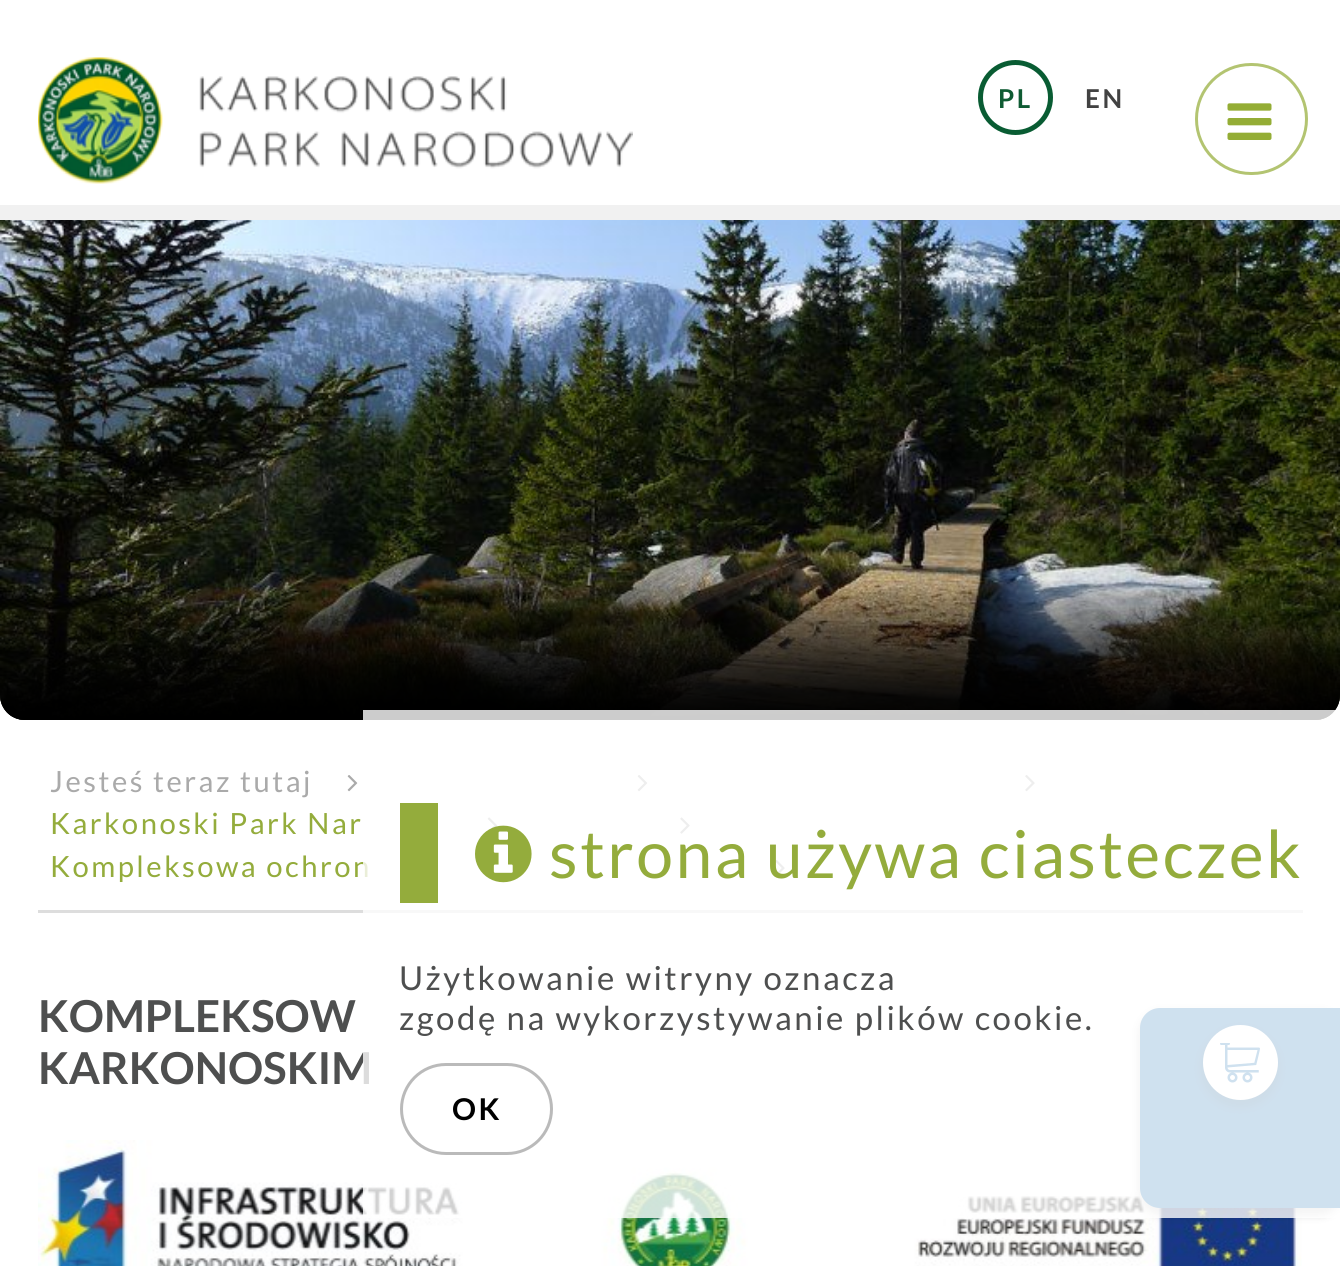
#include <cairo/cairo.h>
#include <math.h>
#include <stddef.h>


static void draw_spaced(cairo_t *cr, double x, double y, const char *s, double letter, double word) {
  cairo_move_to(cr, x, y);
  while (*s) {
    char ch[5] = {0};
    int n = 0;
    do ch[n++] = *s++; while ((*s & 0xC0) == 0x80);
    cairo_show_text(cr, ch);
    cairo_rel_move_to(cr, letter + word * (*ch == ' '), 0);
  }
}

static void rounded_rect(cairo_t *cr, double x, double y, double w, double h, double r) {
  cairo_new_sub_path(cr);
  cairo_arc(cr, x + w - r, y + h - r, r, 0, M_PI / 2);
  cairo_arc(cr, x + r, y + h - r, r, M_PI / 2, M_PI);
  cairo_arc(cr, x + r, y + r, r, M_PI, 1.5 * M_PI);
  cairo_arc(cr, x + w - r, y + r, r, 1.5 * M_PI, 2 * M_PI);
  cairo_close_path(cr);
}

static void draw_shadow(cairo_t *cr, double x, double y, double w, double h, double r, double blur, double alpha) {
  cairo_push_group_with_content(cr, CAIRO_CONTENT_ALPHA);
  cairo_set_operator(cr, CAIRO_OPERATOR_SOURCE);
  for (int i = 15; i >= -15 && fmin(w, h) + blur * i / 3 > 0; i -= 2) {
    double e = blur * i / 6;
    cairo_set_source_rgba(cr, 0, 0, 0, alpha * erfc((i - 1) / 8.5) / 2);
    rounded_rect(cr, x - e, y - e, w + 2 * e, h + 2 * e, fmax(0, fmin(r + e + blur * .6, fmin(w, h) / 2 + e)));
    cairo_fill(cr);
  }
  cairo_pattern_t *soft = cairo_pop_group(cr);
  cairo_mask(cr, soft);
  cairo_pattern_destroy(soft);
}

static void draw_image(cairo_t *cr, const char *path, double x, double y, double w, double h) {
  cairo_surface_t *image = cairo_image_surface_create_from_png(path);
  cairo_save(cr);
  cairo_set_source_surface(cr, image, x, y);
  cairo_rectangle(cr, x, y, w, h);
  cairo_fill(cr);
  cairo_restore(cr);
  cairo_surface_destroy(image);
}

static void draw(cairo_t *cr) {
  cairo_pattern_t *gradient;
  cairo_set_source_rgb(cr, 1, 1, 1);
  cairo_paint(cr);
  rounded_rect(cr, 1196.5, 64.5, 110, 109, 54.5);
  cairo_set_source_rgb(cr, 179 / 255.0, 196 / 255.0, 113 / 255.0);
  cairo_set_line_width(cr, 3);
  cairo_stroke(cr);
  draw_image(cr, "images/1.png", 1227, 103, 45, 37);
  cairo_set_source_rgb(cr, 241 / 255.0, 241 / 255.0, 241 / 255.0);
  cairo_rectangle(cr, 0, 205, 1340, 15);
  cairo_fill(cr);
  draw_image(cr, "images/2.png", 38, 57, 595, 127);
  cairo_arc(cr, 1015.5, 97.5, 35, 0, 2 * M_PI);
  cairo_set_source_rgb(cr, 9 / 255.0, 92 / 255.0, 51 / 255.0);
  cairo_set_line_width(cr, 5);
  cairo_stroke(cr);
  cairo_set_source_rgb(cr, 97 / 255.0, 97 / 255.0, 97 / 255.0);
  cairo_new_path(cr);
  cairo_move_to(cr, 0, 220);
  cairo_line_to(cr, 1340, 220);
  cairo_line_to(cr, 1340, 695);
  cairo_curve_to(cr, 1340, 709, 1329, 720, 1315, 720);
  cairo_line_to(cr, 25, 720);
  cairo_curve_to(cr, 11, 720, 0, 709, 0, 695);
  cairo_close_path(cr);
  cairo_fill(cr);
  draw_image(cr, "images/3.png", 0, 220, 1340, 500);
  gradient = cairo_pattern_create_linear(670, 220, 670, 720);
  cairo_pattern_add_color_stop_rgba(gradient, 0, 0, 0, 0, 0);
  cairo_pattern_add_color_stop_rgba(gradient, 0.72, 0, 0, 0, 0);
  cairo_pattern_add_color_stop_rgba(gradient, 1, 0, 0, 0, 1);
  cairo_set_source(cr, gradient);
  cairo_pattern_destroy(gradient);
  cairo_new_path(cr);
  cairo_move_to(cr, 0, 220);
  cairo_line_to(cr, 1340, 220);
  cairo_line_to(cr, 1340, 695);
  cairo_curve_to(cr, 1340, 709, 1329, 720, 1315, 720);
  cairo_line_to(cr, 25, 720);
  cairo_curve_to(cr, 11, 720, 0, 709, 0, 695);
  cairo_close_path(cr);
  cairo_fill(cr);
  gradient = cairo_pattern_create_linear(670, 570, 670, 720);
  cairo_pattern_add_color_stop_rgba(gradient, 0, 0, 0, 0, 0);
  cairo_pattern_add_color_stop_rgba(gradient, 1, 0, 0, 0, 0.58);
  cairo_set_source(cr, gradient);
  cairo_pattern_destroy(gradient);
  cairo_new_path(cr);
  cairo_move_to(cr, 0, 570);
  cairo_line_to(cr, 1340, 570);
  cairo_line_to(cr, 1340, 695);
  cairo_curve_to(cr, 1340, 709, 1329, 720, 1315, 720);
  cairo_line_to(cr, 25, 720);
  cairo_curve_to(cr, 11, 720, 0, 709, 0, 695);
  cairo_close_path(cr);
  cairo_fill(cr);
  cairo_set_source_rgb(cr, 221 / 255.0, 221 / 255.0, 221 / 255.0);
  cairo_rectangle(cr, 38, 910, 1265, 3);
  cairo_fill(cr);
  draw_image(cr, "images/4.png", 347, 775, 11, 17);
  draw_image(cr, "images/4.png", 637, 775, 11, 17);
  draw_image(cr, "images/5.png", 1025, 775, 10, 17);
  draw_image(cr, "images/6.png", 487, 817, 11, 12);
  draw_image(cr, "images/7.png", 680, 817, 10, 17);
  draw_image(cr, "images/5.png", 775, 860, 10, 17);
  draw_image(cr, "images/8.png", 38, 1140, 1264, 126);
  cairo_set_source_rgb(cr, 0, 0, 0);
  draw_shadow(cr, 1138, 1010, 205, 205, 23, 4, 0.2);
  cairo_set_source_rgb(cr, 14 / 255.0, 104 / 255.0, 175 / 255.0);
  cairo_new_path(cr);
  cairo_move_to(cr, 1160, 1008);
  cairo_line_to(cr, 1340, 1008);
  cairo_line_to(cr, 1340, 1208);
  cairo_line_to(cr, 1160, 1208);
  cairo_curve_to(cr, 1149, 1208, 1140, 1199, 1140, 1188);
  cairo_line_to(cr, 1140, 1028);
  cairo_curve_to(cr, 1140, 1017, 1149, 1008, 1160, 1008);
  cairo_close_path(cr);
  cairo_fill(cr);
  cairo_set_source_rgb(cr, 0, 0, 0);
  draw_shadow(cr, 1200, 1028, 80, 80, 40, 4, 0.2);
  cairo_set_source_rgb(cr, 1, 1, 1);
  cairo_arc(cr, 1240.5, 1062.5, 37.5, 0, 2 * M_PI);
  cairo_fill(cr);
  draw_image(cr, "images/10.png", 1220, 1043, 40, 40);
  cairo_select_font_face(cr, "Lato", CAIRO_FONT_SLANT_NORMAL, CAIRO_FONT_WEIGHT_BOLD);
  cairo_set_font_size(cr, 26);
  cairo_set_source_rgb(cr, 15 / 255.0, 91 / 255.0, 51 / 255.0);
  draw_spaced(cr, 998, 108, "PL", 2.5, 0);
  cairo_set_source_rgb(cr, 66 / 255.0, 66 / 255.0, 66 / 255.0);
  draw_spaced(cr, 1085, 108, "EN", 2.5, 0);
  cairo_select_font_face(cr, "Lato", CAIRO_FONT_SLANT_NORMAL, CAIRO_FONT_WEIGHT_NORMAL);
  cairo_set_font_size(cr, 29.25);
  cairo_set_source_rgb(cr, 170 / 255.0, 170 / 255.0, 170 / 255.0);
  draw_spaced(cr, 50, 792, "Jesteś teraz tutaj", 2.5, 0);
  cairo_set_source_rgb(cr, 148 / 255.0, 172 / 255.0, 60 / 255.0);
  draw_spaced(cr, 50, 834, "Karkonoski Park Nar", 2.5, 0);
  draw_spaced(cr, 50, 877, "Kompleksowa ochron", 2.5, 0);
  cairo_select_font_face(cr, "Lato", CAIRO_FONT_SLANT_NORMAL, CAIRO_FONT_WEIGHT_BOLD);
  cairo_set_font_size(cr, 44);
  cairo_set_source_rgb(cr, 78 / 255.0, 79 / 255.0, 79 / 255.0);
  cairo_move_to(cr, 38, 1032);
  cairo_show_text(cr, "KOMPLEKSOW");
  cairo_move_to(cr, 38, 1084);
  cairo_show_text(cr, "KARKONOSKIM");
  cairo_set_source_rgba(cr, 1, 1, 1, 0.8);
  cairo_rectangle(cr, 363, 710, 977, 508);
  cairo_fill(cr);
  cairo_set_source_rgb(cr, 148 / 255.0, 172 / 255.0, 60 / 255.0);
  cairo_rectangle(cr, 400, 803, 38, 100);
  cairo_fill(cr);
  draw_image(cr, "images/9.png", 475, 825, 57, 58);
  cairo_select_font_face(cr, "Lato", CAIRO_FONT_SLANT_NORMAL, CAIRO_FONT_WEIGHT_NORMAL);
  cairo_set_font_size(cr, 66);
  draw_spaced(cr, 549, 878, "strona używa ciasteczek", 2.5, 0);
  cairo_set_font_size(cr, 33);
  cairo_set_source_rgb(cr, 78 / 255.0, 79 / 255.0, 79 / 255.0);
  draw_spaced(cr, 399, 990, "Użytkowanie witryny oznacza", 2.5, 0);
  draw_spaced(cr, 399, 1030, "zgodę na wykorzystywanie plików cookie.", 2.5, 0);
  rounded_rect(cr, 401.5, 1064.5, 150, 89, 44.5);
  cairo_set_source_rgb(cr, 186 / 255.0, 186 / 255.0, 186 / 255.0);
  cairo_set_line_width(cr, 3);
  cairo_stroke(cr);
  cairo_select_font_face(cr, "Lato", CAIRO_FONT_SLANT_NORMAL, CAIRO_FONT_WEIGHT_BOLD);
  cairo_set_font_size(cr, 30);
  cairo_set_source_rgb(cr, 0, 0, 0);
  draw_spaced(cr, 452, 1120, "OK", 2.5, 0);
}

int main(void) {
  cairo_surface_t *surface = cairo_image_surface_create(CAIRO_FORMAT_RGB24, 1340, 1266);
  cairo_t *cr = cairo_create(surface);
  cairo_font_options_t *options = cairo_font_options_create();
  cairo_font_options_set_hint_metrics(options, CAIRO_HINT_METRICS_OFF);
  cairo_font_options_set_hint_style(options, CAIRO_HINT_STYLE_NONE);
  cairo_set_font_options(cr, options);
  cairo_set_miter_limit(cr, 4);
  draw(cr);
  cairo_surface_write_to_png(surface, "out.png");
  cairo_font_options_destroy(options);
  cairo_destroy(cr);
  cairo_surface_destroy(surface);
  return 0;
}
